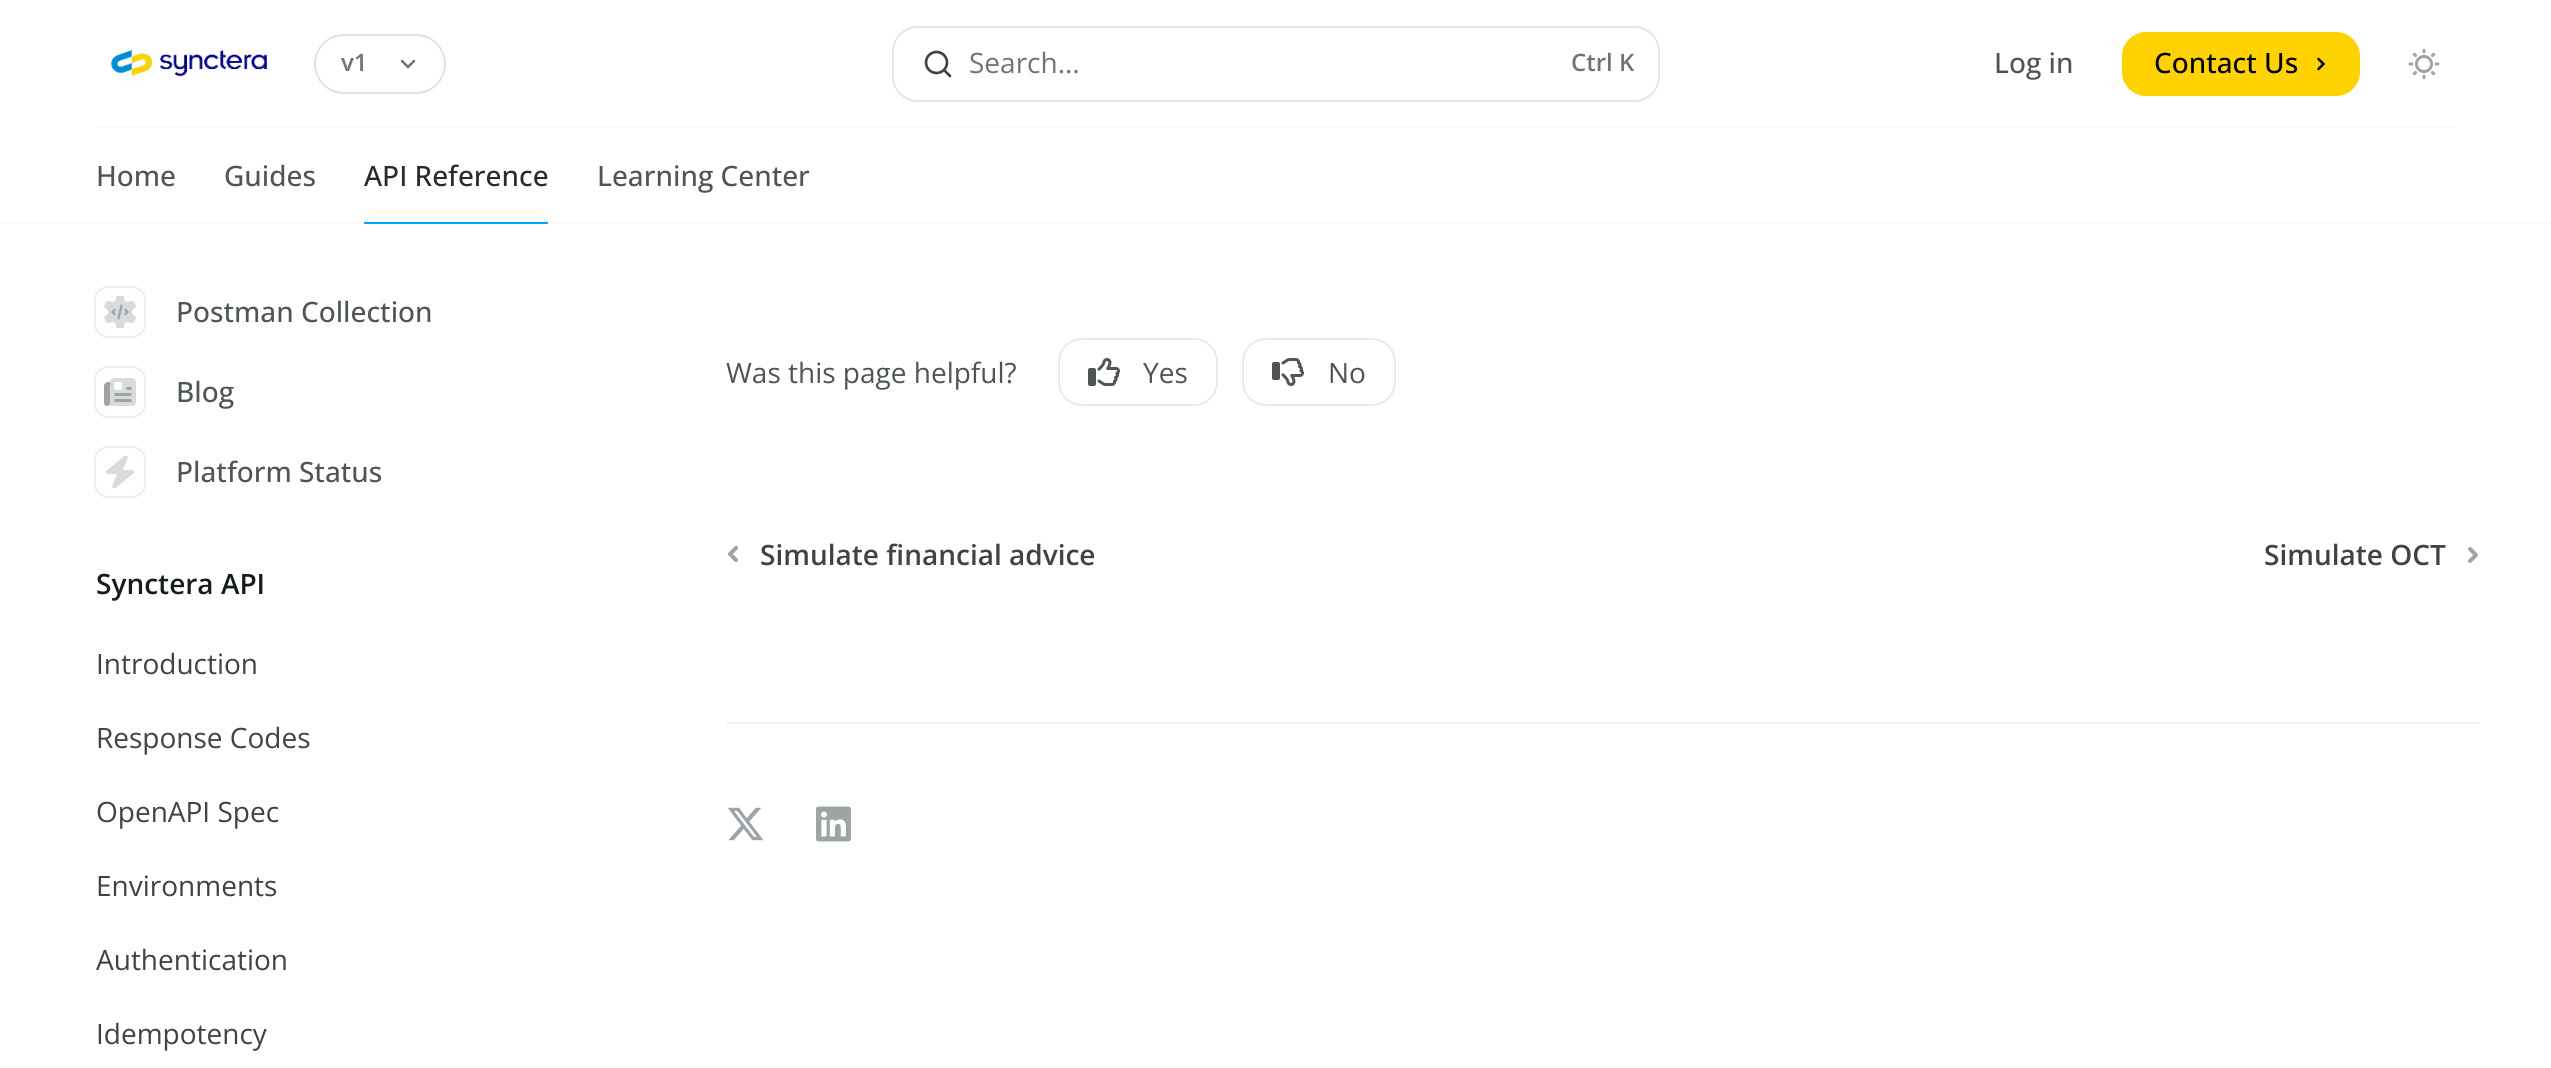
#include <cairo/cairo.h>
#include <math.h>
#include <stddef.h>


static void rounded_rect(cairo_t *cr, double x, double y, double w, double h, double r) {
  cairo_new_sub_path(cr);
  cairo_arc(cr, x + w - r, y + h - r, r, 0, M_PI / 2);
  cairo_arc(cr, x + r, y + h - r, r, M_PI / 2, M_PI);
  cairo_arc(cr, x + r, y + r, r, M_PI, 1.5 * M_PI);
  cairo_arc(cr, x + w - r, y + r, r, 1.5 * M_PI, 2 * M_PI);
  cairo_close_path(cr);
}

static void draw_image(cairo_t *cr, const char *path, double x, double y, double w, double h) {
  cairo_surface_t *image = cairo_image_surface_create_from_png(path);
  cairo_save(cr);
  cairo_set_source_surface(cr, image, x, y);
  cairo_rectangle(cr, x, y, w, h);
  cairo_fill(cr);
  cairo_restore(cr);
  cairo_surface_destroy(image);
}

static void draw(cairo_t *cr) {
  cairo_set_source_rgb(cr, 1, 1, 1);
  cairo_paint(cr);
  cairo_set_source_rgb(cr, 248 / 255.0, 248 / 255.0, 248 / 255.0);
  cairo_rectangle(cr, 96, 126, 2360, 2);
  cairo_fill(cr);
  draw_image(cr, "images/1.png", 111, 50, 156, 27);
  rounded_rect(cr, 315, 35, 130, 58, 29);
  cairo_set_source_rgb(cr, 222 / 255.0, 227 / 255.0, 230 / 255.0);
  cairo_stroke(cr);
  cairo_new_path(cr);
  cairo_move_to(cr, 402, 61);
  cairo_line_to(cr, 408, 67);
  cairo_line_to(cr, 414, 61);
  cairo_set_source_rgb(cr, 111 / 255.0, 117 / 255.0, 119 / 255.0);
  cairo_set_line_width(cr, 2.5);
  cairo_set_line_cap(cr, CAIRO_LINE_CAP_ROUND);
  cairo_set_line_join(cr, CAIRO_LINE_JOIN_ROUND);
  cairo_stroke(cr);
  rounded_rect(cr, 893, 27, 766, 74, 25);
  cairo_set_source_rgb(cr, 226 / 255.0, 227 / 255.0, 228 / 255.0);
  cairo_set_line_width(cr, 2);
  cairo_set_line_cap(cr, CAIRO_LINE_CAP_BUTT);
  cairo_set_line_join(cr, CAIRO_LINE_JOIN_MITER);
  cairo_stroke(cr);
  cairo_set_source_rgb(cr, 1, 1, 1);
  rounded_rect(cr, 894, 28, 764, 72, 24);
  cairo_fill(cr);
  cairo_arc(cr, 936.5, 62.5, 10.5, 0, 2 * M_PI);
  cairo_set_source_rgb(cr, 62 / 255.0, 67 / 255.0, 70 / 255.0);
  cairo_set_line_width(cr, 2.7);
  cairo_stroke(cr);
  cairo_new_path(cr);
  cairo_move_to(cr, 950, 76);
  cairo_line_to(cr, 944.5, 70.5);
  cairo_set_line_cap(cr, CAIRO_LINE_CAP_ROUND);
  cairo_set_line_join(cr, CAIRO_LINE_JOIN_ROUND);
  cairo_stroke(cr);
  cairo_set_source_rgb(cr, 1, 210 / 255.0, 0);
  rounded_rect(cr, 2122, 32, 238, 64, 24);
  cairo_fill(cr);
  cairo_new_path(cr);
  cairo_move_to(cr, 2318.5, 59);
  cairo_line_to(cr, 2323.5, 64);
  cairo_line_to(cr, 2318.5, 69);
  cairo_set_source_rgb(cr, 0, 0, 0);
  cairo_set_line_width(cr, 2.5);
  cairo_set_line_join(cr, CAIRO_LINE_JOIN_MITER);
  cairo_stroke(cr);
  draw_image(cr, "images/2.png", 2408, 48, 32, 32);
  cairo_set_source_rgb(cr, 248 / 255.0, 248 / 255.0, 248 / 255.0);
  cairo_rectangle(cr, 0, 222, 2551, 2);
  cairo_fill(cr);
  cairo_set_source_rgb(cr, 0, 165 / 255.0, 251 / 255.0);
  cairo_rectangle(cr, 364, 222, 184, 2);
  cairo_fill(cr);
  rounded_rect(cr, 95, 287, 50, 50, 13);
  cairo_set_source_rgb(cr, 238 / 255.0, 238 / 255.0, 238 / 255.0);
  cairo_set_line_width(cr, 2);
  cairo_set_line_cap(cr, CAIRO_LINE_CAP_BUTT);
  cairo_stroke(cr);
  draw_image(cr, "images/3.png", 104, 296, 32, 32);
  rounded_rect(cr, 95, 367, 50, 50, 13);
  cairo_stroke(cr);
  draw_image(cr, "images/4.png", 104, 378, 32, 28);
  rounded_rect(cr, 95, 447, 50, 50, 13);
  cairo_stroke(cr);
  draw_image(cr, "images/5.png", 106, 456, 28, 32);
  rounded_rect(cr, 1059, 339, 158, 66, 23);
  cairo_set_source_rgb(cr, 232 / 255.0, 235 / 255.0, 238 / 255.0);
  cairo_stroke(cr);
  draw_image(cr, "images/6.png", 1088, 358, 32, 28);
  rounded_rect(cr, 1243, 339, 152, 66, 23);
  cairo_stroke(cr);
  draw_image(cr, "images/7.png", 1272, 358, 32, 28);
  cairo_new_path(cr);
  cairo_move_to(cr, 736, 548);
  cairo_line_to(cr, 730, 554);
  cairo_line_to(cr, 736, 560);
  cairo_set_source_rgb(cr, 158 / 255.0, 163 / 255.0, 166 / 255.0);
  cairo_set_line_width(cr, 4);
  cairo_set_line_cap(cr, CAIRO_LINE_CAP_ROUND);
  cairo_set_line_join(cr, CAIRO_LINE_JOIN_ROUND);
  cairo_stroke(cr);
  cairo_new_path(cr);
  cairo_move_to(cr, 2470, 561);
  cairo_line_to(cr, 2476, 555);
  cairo_line_to(cr, 2470, 549);
  cairo_stroke(cr);
  cairo_set_source_rgb(cr, 238 / 255.0, 243 / 255.0, 245 / 255.0);
  cairo_rectangle(cr, 726, 722, 1754, 2);
  cairo_fill(cr);
  draw_image(cr, "images/8.png", 728, 807, 36, 34);
  draw_image(cr, "images/9.png", 816, 806, 35, 36);
  cairo_select_font_face(cr, "Open Sans SemiBold", CAIRO_FONT_SLANT_NORMAL, CAIRO_FONT_WEIGHT_NORMAL);
  cairo_set_font_size(cr, 24);
  cairo_set_source_rgb(cr, 111 / 255.0, 117 / 255.0, 119 / 255.0);
  cairo_move_to(cr, 341, 71);
  cairo_show_text(cr, "v1");
  cairo_select_font_face(cr, "Open Sans", CAIRO_FONT_SLANT_NORMAL, CAIRO_FONT_WEIGHT_NORMAL);
  cairo_set_font_size(cr, 28);
  cairo_move_to(cr, 969, 73);
  cairo_show_text(cr, "Search...");
  cairo_select_font_face(cr, "Open Sans SemiBold", CAIRO_FONT_SLANT_NORMAL, CAIRO_FONT_WEIGHT_NORMAL);
  cairo_set_font_size(cr, 24);
  cairo_move_to(cr, 1571, 71);
  cairo_show_text(cr, "Ctrl K");
  cairo_select_font_face(cr, "Open Sans Medium", CAIRO_FONT_SLANT_NORMAL, CAIRO_FONT_WEIGHT_NORMAL);
  cairo_set_font_size(cr, 28);
  cairo_set_source_rgb(cr, 79 / 255.0, 85 / 255.0, 87 / 255.0);
  cairo_move_to(cr, 1994, 73);
  cairo_show_text(cr, "Log in");
  cairo_set_source_rgb(cr, 0, 0, 0);
  cairo_move_to(cr, 2154, 73);
  cairo_show_text(cr, "Contact Us");
  cairo_set_source_rgb(cr, 79 / 255.0, 85 / 255.0, 87 / 255.0);
  cairo_move_to(cr, 96, 186);
  cairo_show_text(cr, "Home");
  cairo_move_to(cr, 224, 186);
  cairo_show_text(cr, "Guides");
  cairo_set_source_rgb(cr, 37 / 255.0, 42 / 255.0, 45 / 255.0);
  cairo_move_to(cr, 364, 186);
  cairo_show_text(cr, "API Reference");
  cairo_set_source_rgb(cr, 79 / 255.0, 85 / 255.0, 87 / 255.0);
  cairo_move_to(cr, 597, 186);
  cairo_show_text(cr, "Learning Center");
  cairo_move_to(cr, 176, 322);
  cairo_show_text(cr, "Postman Collection");
  cairo_move_to(cr, 176, 402);
  cairo_show_text(cr, "Blog");
  cairo_move_to(cr, 176, 482);
  cairo_show_text(cr, "Platform Status");
  cairo_select_font_face(cr, "Open Sans SemiBold", CAIRO_FONT_SLANT_NORMAL, CAIRO_FONT_WEIGHT_NORMAL);
  cairo_set_source_rgb(cr, 22 / 255.0, 27 / 255.0, 30 / 255.0);
  cairo_move_to(cr, 96, 594);
  cairo_show_text(cr, "Synctera API");
  cairo_select_font_face(cr, "Open Sans", CAIRO_FONT_SLANT_NORMAL, CAIRO_FONT_WEIGHT_NORMAL);
  cairo_set_source_rgb(cr, 62 / 255.0, 67 / 255.0, 70 / 255.0);
  cairo_move_to(cr, 96, 674);
  cairo_show_text(cr, "Introduction");
  cairo_move_to(cr, 96, 748);
  cairo_show_text(cr, "Response Codes");
  cairo_move_to(cr, 96, 822);
  cairo_show_text(cr, "OpenAPI Spec");
  cairo_move_to(cr, 96, 896);
  cairo_show_text(cr, "Environments");
  cairo_move_to(cr, 96, 970);
  cairo_show_text(cr, "Authentication");
  cairo_move_to(cr, 96, 1044);
  cairo_show_text(cr, "Idempotency");
  cairo_set_source_rgb(cr, 79 / 255.0, 85 / 255.0, 87 / 255.0);
  cairo_move_to(cr, 726, 383);
  cairo_show_text(cr, "Was this page helpful?");
  cairo_move_to(cr, 1143, 383);
  cairo_show_text(cr, "Yes");
  cairo_move_to(cr, 1328, 383);
  cairo_show_text(cr, "No");
  cairo_select_font_face(cr, "Open Sans SemiBold", CAIRO_FONT_SLANT_NORMAL, CAIRO_FONT_WEIGHT_NORMAL);
  cairo_set_source_rgb(cr, 62 / 255.0, 67 / 255.0, 70 / 255.0);
  cairo_move_to(cr, 760, 565);
  cairo_show_text(cr, "Simulate financial advice");
  cairo_move_to(cr, 2264, 565);
  cairo_show_text(cr, "Simulate OCT");
}

int main(void) {
  cairo_surface_t *surface = cairo_image_surface_create(CAIRO_FORMAT_RGB24, 2551, 1068);
  cairo_t *cr = cairo_create(surface);
  cairo_font_options_t *options = cairo_font_options_create();
  cairo_font_options_set_hint_metrics(options, CAIRO_HINT_METRICS_OFF);
  cairo_font_options_set_hint_style(options, CAIRO_HINT_STYLE_NONE);
  cairo_set_font_options(cr, options);
  cairo_set_miter_limit(cr, 4);
  draw(cr);
  cairo_surface_write_to_png(surface, "out.png");
  cairo_font_options_destroy(options);
  cairo_destroy(cr);
  cairo_surface_destroy(surface);
  return 0;
}
